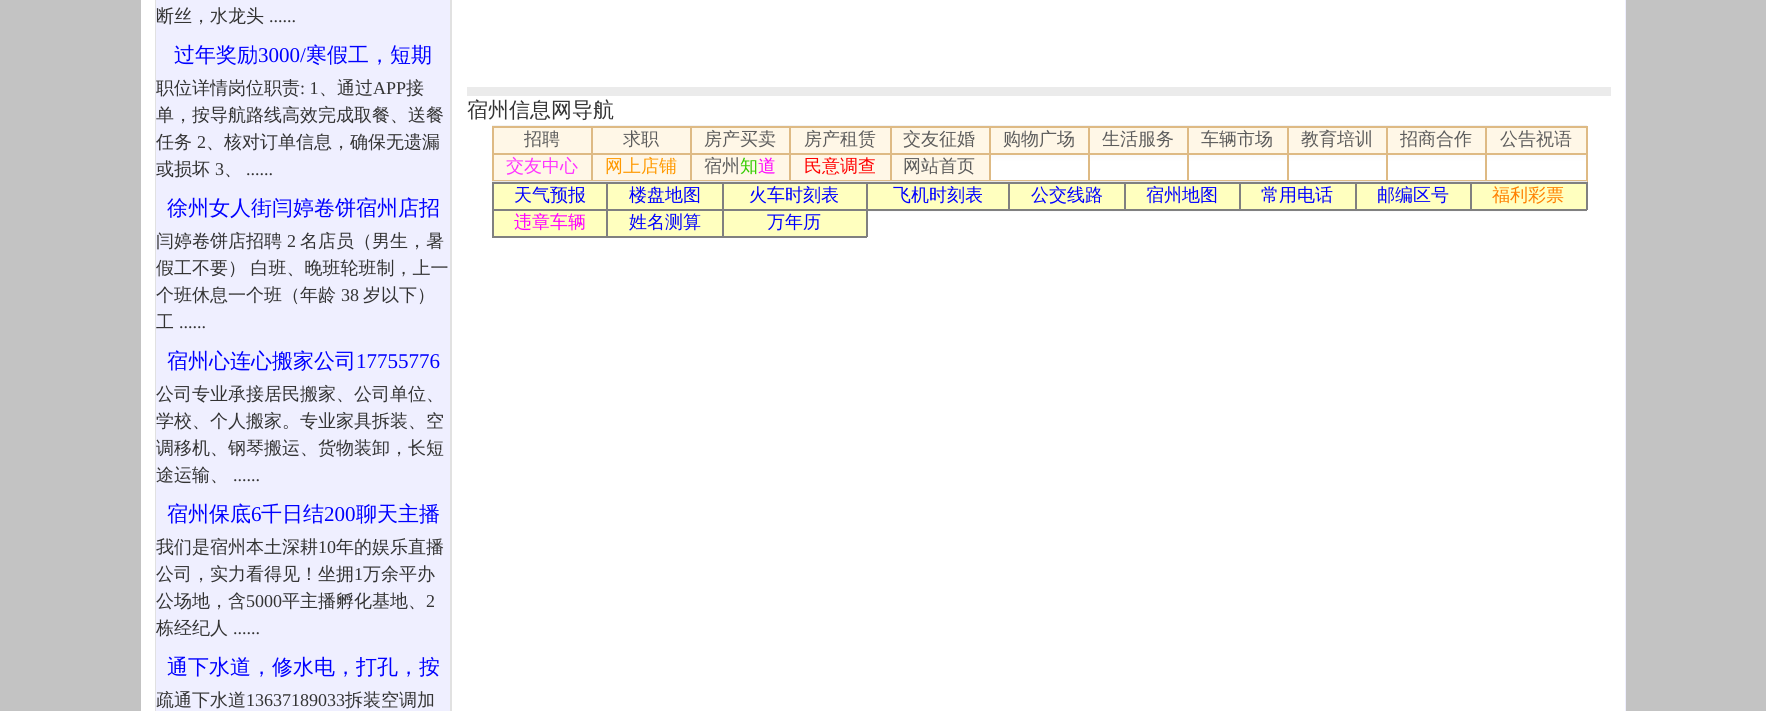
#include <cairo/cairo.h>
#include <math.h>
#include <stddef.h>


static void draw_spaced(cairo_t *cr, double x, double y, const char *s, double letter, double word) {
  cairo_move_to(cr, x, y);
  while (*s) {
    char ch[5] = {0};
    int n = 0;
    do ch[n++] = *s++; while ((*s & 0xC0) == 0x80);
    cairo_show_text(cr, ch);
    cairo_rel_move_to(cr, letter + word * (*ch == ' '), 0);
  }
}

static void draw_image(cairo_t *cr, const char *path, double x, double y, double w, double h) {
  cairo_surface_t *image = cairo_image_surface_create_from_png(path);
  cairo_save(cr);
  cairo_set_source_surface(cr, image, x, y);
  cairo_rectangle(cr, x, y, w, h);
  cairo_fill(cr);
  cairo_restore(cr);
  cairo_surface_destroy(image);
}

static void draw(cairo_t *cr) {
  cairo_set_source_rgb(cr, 195 / 255.0, 195 / 255.0, 195 / 255.0);
  cairo_paint(cr);
  cairo_set_source_rgb(cr, 239 / 255.0, 239 / 255.0, 1);
  cairo_rectangle(cr, 1625, 0, 1, 711);
  cairo_fill(cr);
  cairo_set_source_rgb(cr, 1, 1, 1);
  cairo_rectangle(cr, 141, 0, 1484, 711);
  cairo_fill(cr);
  cairo_rectangle(cr, 156, -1, 295, 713);
  cairo_set_source_rgb(cr, 225 / 255.0, 225 / 255.0, 225 / 255.0);
  cairo_stroke(cr);
  cairo_set_source_rgb(cr, 239 / 255.0, 239 / 255.0, 1);
  cairo_rectangle(cr, 156, 0, 294, 711);
  cairo_fill(cr);
  cairo_set_source_rgb(cr, 235 / 255.0, 235 / 255.0, 235 / 255.0);
  cairo_rectangle(cr, 467, 87, 1144, 9);
  cairo_fill(cr);
  draw_image(cr, "images/1.png", 492, 125, 1095, 55);
  cairo_set_source_rgb(cr, 1, 247 / 255.0, 231 / 255.0);
  cairo_rectangle(cr, 494, 128, 97, 25);
  cairo_fill(cr);
  cairo_set_source_rgb(cr, 222 / 255.0, 186 / 255.0, 132 / 255.0);
  cairo_rectangle(cr, 1485, 126, 102, 2);
  cairo_fill(cr);
  cairo_rectangle(cr, 1485, 153, 102, 2);
  cairo_fill(cr);
  cairo_rectangle(cr, 1586, 153, 2, 29);
  cairo_fill(cr);
  cairo_rectangle(cr, 1485, 180, 102, 1);
  cairo_fill(cr);
  cairo_rectangle(cr, 1485, 153, 2, 29);
  cairo_fill(cr);
  cairo_rectangle(cr, 1386, 153, 101, 2);
  cairo_fill(cr);
  cairo_rectangle(cr, 1485, 126, 2, 29);
  cairo_fill(cr);
  cairo_rectangle(cr, 1386, 126, 101, 2);
  cairo_fill(cr);
  cairo_rectangle(cr, 1386, 180, 101, 1);
  cairo_fill(cr);
  cairo_rectangle(cr, 1386, 153, 2, 29);
  cairo_fill(cr);
  cairo_rectangle(cr, 1287, 153, 101, 2);
  cairo_fill(cr);
  cairo_rectangle(cr, 1386, 126, 2, 29);
  cairo_fill(cr);
  cairo_rectangle(cr, 1287, 126, 101, 2);
  cairo_fill(cr);
  cairo_rectangle(cr, 1287, 180, 101, 1);
  cairo_fill(cr);
  cairo_rectangle(cr, 1287, 153, 2, 29);
  cairo_fill(cr);
  cairo_rectangle(cr, 1187, 153, 102, 2);
  cairo_fill(cr);
  cairo_rectangle(cr, 1287, 126, 2, 29);
  cairo_fill(cr);
  cairo_rectangle(cr, 1187, 126, 102, 2);
  cairo_fill(cr);
  cairo_rectangle(cr, 1187, 180, 102, 1);
  cairo_fill(cr);
  cairo_rectangle(cr, 1187, 153, 2, 29);
  cairo_fill(cr);
  cairo_rectangle(cr, 1088, 153, 100, 2);
  cairo_fill(cr);
  cairo_rectangle(cr, 1187, 126, 2, 29);
  cairo_fill(cr);
  cairo_rectangle(cr, 1088, 126, 100, 2);
  cairo_fill(cr);
  cairo_rectangle(cr, 1088, 180, 100, 1);
  cairo_fill(cr);
  cairo_rectangle(cr, 1088, 153, 2, 29);
  cairo_fill(cr);
  cairo_rectangle(cr, 989, 153, 100, 2);
  cairo_fill(cr);
  cairo_rectangle(cr, 1088, 126, 2, 29);
  cairo_fill(cr);
  cairo_rectangle(cr, 989, 126, 100, 2);
  cairo_fill(cr);
  cairo_rectangle(cr, 989, 180, 100, 1);
  cairo_fill(cr);
  cairo_rectangle(cr, 989, 153, 2, 29);
  cairo_fill(cr);
  cairo_rectangle(cr, 890, 153, 100, 2);
  cairo_fill(cr);
  cairo_rectangle(cr, 989, 126, 2, 29);
  cairo_fill(cr);
  cairo_rectangle(cr, 890, 126, 100, 2);
  cairo_fill(cr);
  cairo_rectangle(cr, 890, 180, 100, 1);
  cairo_fill(cr);
  cairo_rectangle(cr, 890, 153, 2, 29);
  cairo_fill(cr);
  cairo_rectangle(cr, 789, 153, 102, 2);
  cairo_fill(cr);
  cairo_rectangle(cr, 890, 126, 2, 29);
  cairo_fill(cr);
  cairo_rectangle(cr, 789, 126, 102, 2);
  cairo_fill(cr);
  cairo_rectangle(cr, 789, 180, 102, 1);
  cairo_fill(cr);
  cairo_rectangle(cr, 789, 153, 2, 29);
  cairo_fill(cr);
  cairo_rectangle(cr, 690, 153, 101, 2);
  cairo_fill(cr);
  cairo_rectangle(cr, 789, 126, 2, 29);
  cairo_fill(cr);
  cairo_rectangle(cr, 690, 126, 101, 2);
  cairo_fill(cr);
  cairo_rectangle(cr, 690, 180, 101, 1);
  cairo_fill(cr);
  cairo_rectangle(cr, 690, 153, 2, 29);
  cairo_fill(cr);
  cairo_rectangle(cr, 591, 153, 101, 2);
  cairo_fill(cr);
  cairo_rectangle(cr, 690, 126, 2, 29);
  cairo_fill(cr);
  cairo_rectangle(cr, 591, 126, 101, 2);
  cairo_fill(cr);
  cairo_rectangle(cr, 591, 180, 101, 1);
  cairo_fill(cr);
  cairo_rectangle(cr, 591, 153, 2, 29);
  cairo_fill(cr);
  cairo_rectangle(cr, 492, 153, 101, 2);
  cairo_fill(cr);
  cairo_rectangle(cr, 591, 126, 2, 29);
  cairo_fill(cr);
  cairo_rectangle(cr, 492, 126, 101, 2);
  cairo_fill(cr);
  cairo_rectangle(cr, 492, 180, 101, 1);
  cairo_fill(cr);
  cairo_rectangle(cr, 492, 153, 2, 29);
  cairo_fill(cr);
  cairo_rectangle(cr, 492, 126, 2, 29);
  cairo_fill(cr);
  cairo_set_source_rgb(cr, 1, 247 / 255.0, 231 / 255.0);
  cairo_rectangle(cr, 593, 128, 97, 25);
  cairo_fill(cr);
  cairo_rectangle(cr, 692, 128, 97, 25);
  cairo_fill(cr);
  cairo_rectangle(cr, 791, 128, 99, 25);
  cairo_fill(cr);
  cairo_rectangle(cr, 892, 128, 97, 25);
  cairo_fill(cr);
  cairo_rectangle(cr, 991, 128, 97, 25);
  cairo_fill(cr);
  cairo_rectangle(cr, 1090, 128, 97, 25);
  cairo_fill(cr);
  cairo_rectangle(cr, 1189, 128, 98, 25);
  cairo_fill(cr);
  cairo_rectangle(cr, 1289, 128, 97, 25);
  cairo_fill(cr);
  cairo_rectangle(cr, 1388, 128, 97, 25);
  cairo_fill(cr);
  cairo_rectangle(cr, 1487, 128, 99, 25);
  cairo_fill(cr);
  cairo_set_source_rgb(cr, 222 / 255.0, 186 / 255.0, 132 / 255.0);
  cairo_rectangle(cr, 1586, 126, 2, 29);
  cairo_fill(cr);
  cairo_set_source_rgb(cr, 1, 247 / 255.0, 231 / 255.0);
  cairo_rectangle(cr, 494, 155, 97, 25);
  cairo_fill(cr);
  cairo_rectangle(cr, 593, 155, 97, 25);
  cairo_fill(cr);
  cairo_rectangle(cr, 692, 155, 97, 25);
  cairo_fill(cr);
  cairo_rectangle(cr, 791, 155, 99, 25);
  cairo_fill(cr);
  cairo_rectangle(cr, 892, 155, 97, 25);
  cairo_fill(cr);
  draw_image(cr, "images/2.png", 492, 181, 1095, 31);
  cairo_set_source_rgb(cr, 1, 1, 191 / 255.0);
  cairo_rectangle(cr, 494, 184, 112, 25);
  cairo_fill(cr);
  cairo_set_source_rgb(cr, 128 / 255.0, 128 / 255.0, 128 / 255.0);
  cairo_rectangle(cr, 1470, 182, 117, 2);
  cairo_fill(cr);
  cairo_rectangle(cr, 1586, 182, 2, 28);
  cairo_fill(cr);
  cairo_rectangle(cr, 1470, 209, 117, 2);
  cairo_fill(cr);
  cairo_rectangle(cr, 1470, 182, 2, 28);
  cairo_fill(cr);
  cairo_rectangle(cr, 1355, 182, 117, 2);
  cairo_fill(cr);
  cairo_rectangle(cr, 1355, 209, 117, 2);
  cairo_fill(cr);
  cairo_rectangle(cr, 1355, 182, 2, 28);
  cairo_fill(cr);
  cairo_rectangle(cr, 1239, 182, 117, 2);
  cairo_fill(cr);
  cairo_rectangle(cr, 1239, 209, 117, 2);
  cairo_fill(cr);
  cairo_rectangle(cr, 1239, 182, 2, 28);
  cairo_fill(cr);
  cairo_rectangle(cr, 1124, 182, 117, 2);
  cairo_fill(cr);
  cairo_rectangle(cr, 1124, 209, 117, 2);
  cairo_fill(cr);
  cairo_rectangle(cr, 1124, 182, 2, 28);
  cairo_fill(cr);
  cairo_rectangle(cr, 1008, 182, 117, 2);
  cairo_fill(cr);
  cairo_rectangle(cr, 1008, 209, 117, 2);
  cairo_fill(cr);
  cairo_rectangle(cr, 1008, 182, 2, 28);
  cairo_fill(cr);
  cairo_rectangle(cr, 866, 182, 144, 2);
  cairo_fill(cr);
  cairo_rectangle(cr, 722, 209, 145, 2);
  cairo_fill(cr);
  cairo_rectangle(cr, 866, 209, 2, 28);
  cairo_fill(cr);
  cairo_rectangle(cr, 866, 209, 144, 2);
  cairo_fill(cr);
  cairo_rectangle(cr, 866, 182, 2, 28);
  cairo_fill(cr);
  cairo_rectangle(cr, 722, 182, 145, 2);
  cairo_fill(cr);
  cairo_rectangle(cr, 722, 236, 145, 2);
  cairo_fill(cr);
  cairo_rectangle(cr, 722, 209, 2, 28);
  cairo_fill(cr);
  cairo_rectangle(cr, 606, 209, 117, 2);
  cairo_fill(cr);
  cairo_rectangle(cr, 722, 182, 2, 28);
  cairo_fill(cr);
  cairo_rectangle(cr, 606, 182, 117, 2);
  cairo_fill(cr);
  cairo_rectangle(cr, 606, 236, 117, 2);
  cairo_fill(cr);
  cairo_rectangle(cr, 606, 209, 2, 28);
  cairo_fill(cr);
  cairo_rectangle(cr, 492, 209, 116, 2);
  cairo_fill(cr);
  cairo_rectangle(cr, 606, 182, 2, 28);
  cairo_fill(cr);
  cairo_rectangle(cr, 492, 182, 116, 2);
  cairo_fill(cr);
  cairo_rectangle(cr, 492, 236, 116, 2);
  cairo_fill(cr);
  cairo_rectangle(cr, 492, 209, 2, 28);
  cairo_fill(cr);
  cairo_rectangle(cr, 492, 182, 2, 28);
  cairo_fill(cr);
  cairo_set_source_rgb(cr, 1, 1, 191 / 255.0);
  cairo_rectangle(cr, 608, 184, 114, 25);
  cairo_fill(cr);
  cairo_rectangle(cr, 724, 184, 142, 25);
  cairo_fill(cr);
  cairo_rectangle(cr, 868, 184, 140, 25);
  cairo_fill(cr);
  cairo_rectangle(cr, 1010, 184, 114, 25);
  cairo_fill(cr);
  cairo_rectangle(cr, 1126, 184, 113, 25);
  cairo_fill(cr);
  cairo_rectangle(cr, 1241, 184, 114, 25);
  cairo_fill(cr);
  cairo_rectangle(cr, 1357, 184, 113, 25);
  cairo_fill(cr);
  cairo_rectangle(cr, 1472, 184, 114, 25);
  cairo_fill(cr);
  cairo_rectangle(cr, 494, 211, 112, 25);
  cairo_fill(cr);
  cairo_rectangle(cr, 608, 211, 114, 25);
  cairo_fill(cr);
  cairo_rectangle(cr, 724, 211, 142, 25);
  cairo_fill(cr);
  cairo_select_font_face(cr, "WenQuanYi Zen Hei Medium", CAIRO_FONT_SLANT_NORMAL, CAIRO_FONT_WEIGHT_NORMAL);
  cairo_set_font_size(cr, 18);
  cairo_set_source_rgb(cr, 51 / 255.0, 51 / 255.0, 51 / 255.0);
  cairo_move_to(cr, 156, 22);
  cairo_show_text(cr, "断丝，水龙头");
  cairo_select_font_face(cr, "Liberation Serif", CAIRO_FONT_SLANT_NORMAL, CAIRO_FONT_WEIGHT_NORMAL);
  cairo_move_to(cr, 269, 22);
  cairo_show_text(cr, "......");
  cairo_select_font_face(cr, "WenQuanYi Zen Hei Medium", CAIRO_FONT_SLANT_NORMAL, CAIRO_FONT_WEIGHT_NORMAL);
  cairo_set_font_size(cr, 21);
  cairo_set_source_rgb(cr, 0, 0, 1);
  cairo_move_to(cr, 174, 62);
  cairo_show_text(cr, "过年奖励");
  cairo_select_font_face(cr, "Liberation Serif", CAIRO_FONT_SLANT_NORMAL, CAIRO_FONT_WEIGHT_NORMAL);
  cairo_move_to(cr, 258, 62);
  cairo_show_text(cr, "3000/");
  cairo_select_font_face(cr, "WenQuanYi Zen Hei Medium", CAIRO_FONT_SLANT_NORMAL, CAIRO_FONT_WEIGHT_NORMAL);
  cairo_move_to(cr, 306, 62);
  cairo_show_text(cr, "寒假工，短期");
  cairo_set_font_size(cr, 18);
  cairo_set_source_rgb(cr, 51 / 255.0, 51 / 255.0, 51 / 255.0);
  cairo_move_to(cr, 156, 94);
  cairo_show_text(cr, "职位详情岗位职责");
  cairo_select_font_face(cr, "Liberation Serif", CAIRO_FONT_SLANT_NORMAL, CAIRO_FONT_WEIGHT_NORMAL);
  cairo_move_to(cr, 300, 94);
  cairo_show_text(cr, ": 1");
  cairo_select_font_face(cr, "WenQuanYi Zen Hei Medium", CAIRO_FONT_SLANT_NORMAL, CAIRO_FONT_WEIGHT_NORMAL);
  cairo_move_to(cr, 319, 94);
  cairo_show_text(cr, "、通过");
  cairo_select_font_face(cr, "Liberation Serif", CAIRO_FONT_SLANT_NORMAL, CAIRO_FONT_WEIGHT_NORMAL);
  cairo_move_to(cr, 373, 94);
  cairo_show_text(cr, "APP");
  cairo_select_font_face(cr, "WenQuanYi Zen Hei Medium", CAIRO_FONT_SLANT_NORMAL, CAIRO_FONT_WEIGHT_NORMAL);
  cairo_move_to(cr, 406, 94);
  cairo_show_text(cr, "接");
  cairo_move_to(cr, 156, 121);
  cairo_show_text(cr, "单，按导航路线高效完成取餐、送餐");
  cairo_move_to(cr, 156, 148);
  cairo_show_text(cr, "任务");
  cairo_select_font_face(cr, "Liberation Serif", CAIRO_FONT_SLANT_NORMAL, CAIRO_FONT_WEIGHT_NORMAL);
  cairo_move_to(cr, 197, 148);
  cairo_show_text(cr, "2");
  cairo_select_font_face(cr, "WenQuanYi Zen Hei Medium", CAIRO_FONT_SLANT_NORMAL, CAIRO_FONT_WEIGHT_NORMAL);
  cairo_move_to(cr, 206, 148);
  cairo_show_text(cr, "、核对订单信息，确保无遗漏");
  cairo_move_to(cr, 156, 175);
  cairo_show_text(cr, "或损坏");
  cairo_select_font_face(cr, "Liberation Serif", CAIRO_FONT_SLANT_NORMAL, CAIRO_FONT_WEIGHT_NORMAL);
  cairo_move_to(cr, 215, 175);
  cairo_show_text(cr, "3");
  cairo_select_font_face(cr, "WenQuanYi Zen Hei Medium", CAIRO_FONT_SLANT_NORMAL, CAIRO_FONT_WEIGHT_NORMAL);
  cairo_move_to(cr, 224, 175);
  cairo_show_text(cr, "、");
  cairo_select_font_face(cr, "Liberation Serif", CAIRO_FONT_SLANT_NORMAL, CAIRO_FONT_WEIGHT_NORMAL);
  cairo_move_to(cr, 246, 175);
  cairo_show_text(cr, "......");
  cairo_select_font_face(cr, "WenQuanYi Zen Hei Medium", CAIRO_FONT_SLANT_NORMAL, CAIRO_FONT_WEIGHT_NORMAL);
  cairo_set_font_size(cr, 21);
  cairo_set_source_rgb(cr, 0, 0, 1);
  cairo_move_to(cr, 167, 215);
  cairo_show_text(cr, "徐州女人街闫婷卷饼宿州店招");
  cairo_set_font_size(cr, 18);
  cairo_set_source_rgb(cr, 51 / 255.0, 51 / 255.0, 51 / 255.0);
  cairo_move_to(cr, 156, 247);
  cairo_show_text(cr, "闫婷卷饼店招聘");
  cairo_select_font_face(cr, "Liberation Serif", CAIRO_FONT_SLANT_NORMAL, CAIRO_FONT_WEIGHT_NORMAL);
  cairo_move_to(cr, 287, 247);
  cairo_show_text(cr, "2");
  cairo_select_font_face(cr, "WenQuanYi Zen Hei Medium", CAIRO_FONT_SLANT_NORMAL, CAIRO_FONT_WEIGHT_NORMAL);
  cairo_move_to(cr, 300, 247);
  cairo_show_text(cr, "名店员（男生，暑");
  draw_spaced(cr, 156, 274, "假工不要） 白班、晚班轮班制，上一", 0, -1);
  cairo_move_to(cr, 156, 301);
  cairo_show_text(cr, "个班休息一个班（年龄");
  cairo_select_font_face(cr, "Liberation Serif", CAIRO_FONT_SLANT_NORMAL, CAIRO_FONT_WEIGHT_NORMAL);
  cairo_move_to(cr, 341, 301);
  cairo_show_text(cr, "38");
  cairo_select_font_face(cr, "WenQuanYi Zen Hei Medium", CAIRO_FONT_SLANT_NORMAL, CAIRO_FONT_WEIGHT_NORMAL);
  cairo_move_to(cr, 363, 301);
  cairo_show_text(cr, "岁以下）");
  cairo_move_to(cr, 156, 328);
  cairo_show_text(cr, "工");
  cairo_select_font_face(cr, "Liberation Serif", CAIRO_FONT_SLANT_NORMAL, CAIRO_FONT_WEIGHT_NORMAL);
  cairo_move_to(cr, 179, 328);
  cairo_show_text(cr, "......");
  cairo_select_font_face(cr, "WenQuanYi Zen Hei Medium", CAIRO_FONT_SLANT_NORMAL, CAIRO_FONT_WEIGHT_NORMAL);
  cairo_set_font_size(cr, 21);
  cairo_set_source_rgb(cr, 0, 0, 1);
  cairo_move_to(cr, 167, 368);
  cairo_show_text(cr, "宿州心连心搬家公司");
  cairo_select_font_face(cr, "Liberation Serif", CAIRO_FONT_SLANT_NORMAL, CAIRO_FONT_WEIGHT_NORMAL);
  cairo_move_to(cr, 356, 368);
  cairo_show_text(cr, "17755776");
  cairo_select_font_face(cr, "WenQuanYi Zen Hei Medium", CAIRO_FONT_SLANT_NORMAL, CAIRO_FONT_WEIGHT_NORMAL);
  cairo_set_font_size(cr, 18);
  cairo_set_source_rgb(cr, 51 / 255.0, 51 / 255.0, 51 / 255.0);
  cairo_move_to(cr, 156, 400);
  cairo_show_text(cr, "公司专业承接居民搬家、公司单位、");
  cairo_move_to(cr, 156, 427);
  cairo_show_text(cr, "学校、个人搬家。专业家具拆装、空");
  cairo_move_to(cr, 156, 454);
  cairo_show_text(cr, "调移机、钢琴搬运、货物装卸，长短");
  cairo_move_to(cr, 156, 481);
  cairo_show_text(cr, "途运输、");
  cairo_select_font_face(cr, "Liberation Serif", CAIRO_FONT_SLANT_NORMAL, CAIRO_FONT_WEIGHT_NORMAL);
  cairo_move_to(cr, 233, 481);
  cairo_show_text(cr, "......");
  cairo_select_font_face(cr, "WenQuanYi Zen Hei Medium", CAIRO_FONT_SLANT_NORMAL, CAIRO_FONT_WEIGHT_NORMAL);
  cairo_set_font_size(cr, 21);
  cairo_set_source_rgb(cr, 0, 0, 1);
  cairo_move_to(cr, 167, 521);
  cairo_show_text(cr, "宿州保底");
  cairo_select_font_face(cr, "Liberation Serif", CAIRO_FONT_SLANT_NORMAL, CAIRO_FONT_WEIGHT_NORMAL);
  cairo_move_to(cr, 251, 521);
  cairo_show_text(cr, "6");
  cairo_select_font_face(cr, "WenQuanYi Zen Hei Medium", CAIRO_FONT_SLANT_NORMAL, CAIRO_FONT_WEIGHT_NORMAL);
  cairo_move_to(cr, 261, 521);
  cairo_show_text(cr, "千日结");
  cairo_select_font_face(cr, "Liberation Serif", CAIRO_FONT_SLANT_NORMAL, CAIRO_FONT_WEIGHT_NORMAL);
  cairo_move_to(cr, 324, 521);
  cairo_show_text(cr, "200");
  cairo_select_font_face(cr, "WenQuanYi Zen Hei Medium", CAIRO_FONT_SLANT_NORMAL, CAIRO_FONT_WEIGHT_NORMAL);
  cairo_move_to(cr, 356, 521);
  cairo_show_text(cr, "聊天主播");
  cairo_set_font_size(cr, 18);
  cairo_set_source_rgb(cr, 51 / 255.0, 51 / 255.0, 51 / 255.0);
  cairo_move_to(cr, 156, 553);
  cairo_show_text(cr, "我们是宿州本土深耕");
  cairo_select_font_face(cr, "Liberation Serif", CAIRO_FONT_SLANT_NORMAL, CAIRO_FONT_WEIGHT_NORMAL);
  cairo_move_to(cr, 318, 553);
  cairo_show_text(cr, "10");
  cairo_select_font_face(cr, "WenQuanYi Zen Hei Medium", CAIRO_FONT_SLANT_NORMAL, CAIRO_FONT_WEIGHT_NORMAL);
  cairo_move_to(cr, 336, 553);
  cairo_show_text(cr, "年的娱乐直播");
  cairo_move_to(cr, 156, 580);
  cairo_show_text(cr, "公司，实力看得见！坐拥");
  cairo_select_font_face(cr, "Liberation Serif", CAIRO_FONT_SLANT_NORMAL, CAIRO_FONT_WEIGHT_NORMAL);
  cairo_move_to(cr, 354, 580);
  cairo_show_text(cr, "1");
  cairo_select_font_face(cr, "WenQuanYi Zen Hei Medium", CAIRO_FONT_SLANT_NORMAL, CAIRO_FONT_WEIGHT_NORMAL);
  cairo_move_to(cr, 363, 580);
  cairo_show_text(cr, "万余平办");
  cairo_move_to(cr, 156, 607);
  cairo_show_text(cr, "公场地，含");
  cairo_select_font_face(cr, "Liberation Serif", CAIRO_FONT_SLANT_NORMAL, CAIRO_FONT_WEIGHT_NORMAL);
  cairo_move_to(cr, 246, 607);
  cairo_show_text(cr, "5000");
  cairo_select_font_face(cr, "WenQuanYi Zen Hei Medium", CAIRO_FONT_SLANT_NORMAL, CAIRO_FONT_WEIGHT_NORMAL);
  cairo_move_to(cr, 282, 607);
  cairo_show_text(cr, "平主播孵化基地、");
  cairo_select_font_face(cr, "Liberation Serif", CAIRO_FONT_SLANT_NORMAL, CAIRO_FONT_WEIGHT_NORMAL);
  cairo_move_to(cr, 426, 607);
  cairo_show_text(cr, "2");
  cairo_select_font_face(cr, "WenQuanYi Zen Hei Medium", CAIRO_FONT_SLANT_NORMAL, CAIRO_FONT_WEIGHT_NORMAL);
  cairo_move_to(cr, 156, 634);
  cairo_show_text(cr, "栋经纪人");
  cairo_select_font_face(cr, "Liberation Serif", CAIRO_FONT_SLANT_NORMAL, CAIRO_FONT_WEIGHT_NORMAL);
  cairo_move_to(cr, 233, 634);
  cairo_show_text(cr, "......");
  cairo_select_font_face(cr, "WenQuanYi Zen Hei Medium", CAIRO_FONT_SLANT_NORMAL, CAIRO_FONT_WEIGHT_NORMAL);
  cairo_set_font_size(cr, 21);
  cairo_set_source_rgb(cr, 0, 0, 1);
  cairo_move_to(cr, 167, 674);
  cairo_show_text(cr, "通下水道，修水电，打孔，按");
  cairo_set_font_size(cr, 18);
  cairo_set_source_rgb(cr, 51 / 255.0, 51 / 255.0, 51 / 255.0);
  cairo_move_to(cr, 156, 706);
  cairo_show_text(cr, "疏通下水道");
  cairo_select_font_face(cr, "Liberation Serif", CAIRO_FONT_SLANT_NORMAL, CAIRO_FONT_WEIGHT_NORMAL);
  cairo_move_to(cr, 246, 706);
  cairo_show_text(cr, "13637189033");
  cairo_select_font_face(cr, "WenQuanYi Zen Hei Medium", CAIRO_FONT_SLANT_NORMAL, CAIRO_FONT_WEIGHT_NORMAL);
  cairo_move_to(cr, 345, 706);
  cairo_show_text(cr, "拆装空调加");
  cairo_set_font_size(cr, 21);
  cairo_move_to(cr, 467, 117);
  cairo_show_text(cr, "宿州信息网导航");
  cairo_set_font_size(cr, 18);
  cairo_set_source_rgb(cr, 92 / 255.0, 92 / 255.0, 92 / 255.0);
  cairo_move_to(cr, 524, 145);
  cairo_show_text(cr, "招聘");
  cairo_move_to(cr, 623, 145);
  cairo_show_text(cr, "求职");
  cairo_move_to(cr, 704, 145);
  cairo_show_text(cr, "房产买卖");
  cairo_move_to(cr, 804, 145);
  cairo_show_text(cr, "房产租赁");
  cairo_move_to(cr, 903, 145);
  cairo_show_text(cr, "交友征婚");
  cairo_move_to(cr, 1003, 145);
  cairo_show_text(cr, "购物广场");
  cairo_move_to(cr, 1102, 145);
  cairo_show_text(cr, "生活服务");
  cairo_move_to(cr, 1201, 145);
  cairo_show_text(cr, "车辆市场");
  cairo_move_to(cr, 1301, 145);
  cairo_show_text(cr, "教育培训");
  cairo_move_to(cr, 1400, 145);
  cairo_show_text(cr, "招商合作");
  cairo_move_to(cr, 1500, 145);
  cairo_show_text(cr, "公告祝语");
  cairo_set_source_rgb(cr, 1, 51 / 255.0, 1);
  cairo_move_to(cr, 506, 172);
  cairo_show_text(cr, "交友中心");
  cairo_set_source_rgb(cr, 1, 153 / 255.0, 0);
  cairo_move_to(cr, 605, 172);
  cairo_show_text(cr, "网上店铺");
  cairo_set_source_rgb(cr, 92 / 255.0, 92 / 255.0, 92 / 255.0);
  cairo_move_to(cr, 704, 172);
  cairo_show_text(cr, "宿州");
  cairo_set_source_rgb(cr, 51 / 255.0, 204 / 255.0, 0);
  cairo_move_to(cr, 740, 172);
  cairo_show_text(cr, "知");
  cairo_set_source_rgb(cr, 1, 0, 1);
  cairo_move_to(cr, 758, 172);
  cairo_show_text(cr, "道");
  cairo_set_source_rgb(cr, 1, 0, 0);
  cairo_move_to(cr, 804, 172);
  cairo_show_text(cr, "民意调查");
  cairo_set_source_rgb(cr, 92 / 255.0, 92 / 255.0, 92 / 255.0);
  cairo_move_to(cr, 903, 172);
  cairo_show_text(cr, "网站首页");
  cairo_set_source_rgb(cr, 0, 0, 1);
  cairo_move_to(cr, 514, 201);
  cairo_show_text(cr, "天气预报");
  cairo_move_to(cr, 629, 201);
  cairo_show_text(cr, "楼盘地图");
  cairo_move_to(cr, 749, 201);
  cairo_show_text(cr, "火车时刻表");
  cairo_move_to(cr, 893, 201);
  cairo_show_text(cr, "飞机时刻表");
  cairo_move_to(cr, 1031, 201);
  cairo_show_text(cr, "公交线路");
  cairo_move_to(cr, 1146, 201);
  cairo_show_text(cr, "宿州地图");
  cairo_move_to(cr, 1261, 201);
  cairo_show_text(cr, "常用电话");
  cairo_move_to(cr, 1377, 201);
  cairo_show_text(cr, "邮编区号");
  cairo_set_source_rgb(cr, 1, 127 / 255.0, 0);
  cairo_move_to(cr, 1492, 201);
  cairo_show_text(cr, "福利彩票");
  cairo_set_source_rgb(cr, 1, 0, 1);
  cairo_move_to(cr, 514, 228);
  cairo_show_text(cr, "违章车辆");
  cairo_set_source_rgb(cr, 0, 0, 1);
  cairo_move_to(cr, 629, 228);
  cairo_show_text(cr, "姓名测算");
  cairo_move_to(cr, 767, 228);
  cairo_show_text(cr, "万年历");
}

int main(void) {
  cairo_surface_t *surface = cairo_image_surface_create(CAIRO_FORMAT_RGB24, 1766, 711);
  cairo_t *cr = cairo_create(surface);
  cairo_font_options_t *options = cairo_font_options_create();
  cairo_font_options_set_hint_metrics(options, CAIRO_HINT_METRICS_OFF);
  cairo_font_options_set_hint_style(options, CAIRO_HINT_STYLE_NONE);
  cairo_set_font_options(cr, options);
  cairo_set_miter_limit(cr, 4);
  draw(cr);
  cairo_surface_write_to_png(surface, "out.png");
  cairo_font_options_destroy(options);
  cairo_destroy(cr);
  cairo_surface_destroy(surface);
  return 0;
}
